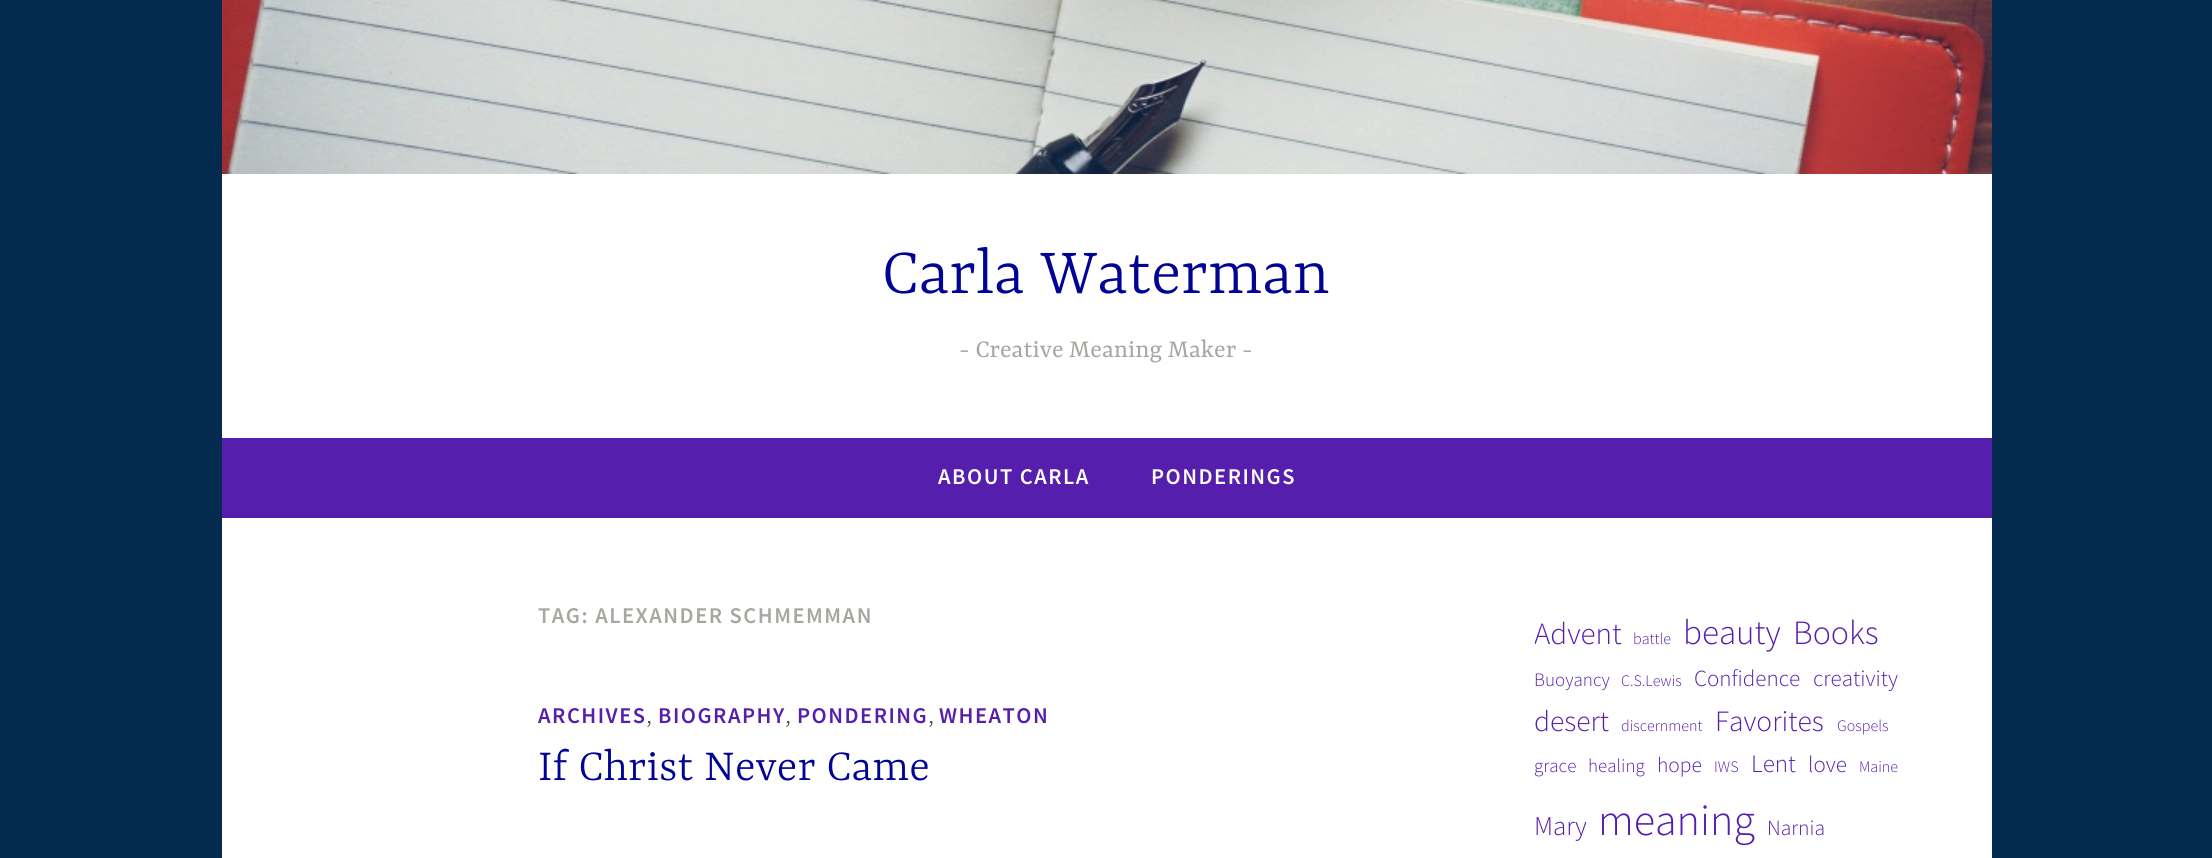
#include <cairo/cairo.h>
#include <math.h>
#include <stddef.h>


static void draw_spaced(cairo_t *cr, double x, double y, const char *s, double letter, double word) {
  cairo_move_to(cr, x, y);
  while (*s) {
    char ch[5] = {0};
    int n = 0;
    do ch[n++] = *s++; while ((*s & 0xC0) == 0x80);
    cairo_show_text(cr, ch);
    cairo_rel_move_to(cr, letter + word * (*ch == ' '), 0);
  }
}

static void draw_image(cairo_t *cr, const char *path, double x, double y, double w, double h) {
  cairo_surface_t *image = cairo_image_surface_create_from_png(path);
  cairo_save(cr);
  cairo_set_source_surface(cr, image, x, y);
  cairo_rectangle(cr, x, y, w, h);
  cairo_fill(cr);
  cairo_restore(cr);
  cairo_surface_destroy(image);
}

static void draw(cairo_t *cr) {
  cairo_set_source_rgb(cr, 4 / 255.0, 43 / 255.0, 79 / 255.0);
  cairo_paint(cr);
  draw_image(cr, "images/1.png", 222, 0, 1770, 174);
  cairo_set_source_rgb(cr, 1, 1, 1);
  cairo_rectangle(cr, 222, 174, 1770, 264);
  cairo_fill(cr);
  cairo_set_source_rgb(cr, 86 / 255.0, 30 / 255.0, 173 / 255.0);
  cairo_rectangle(cr, 222, 438, 1770, 77);
  cairo_fill(cr);
  cairo_set_source_rgb(cr, 83 / 255.0, 29 / 255.0, 168 / 255.0);
  cairo_rectangle(cr, 222, 515, 1770, 3);
  cairo_fill(cr);
  cairo_set_source_rgb(cr, 1, 1, 1);
  cairo_rectangle(cr, 222, 518, 1770, 340);
  cairo_fill(cr);
  cairo_select_font_face(cr, "Yrsa Light", CAIRO_FONT_SLANT_NORMAL, CAIRO_FONT_WEIGHT_NORMAL);
  cairo_set_font_size(cr, 70.5);
  cairo_set_source_rgb(cr, 0, 3 / 255.0, 148 / 255.0);
  cairo_move_to(cr, 882, 293);
  cairo_show_text(cr, "Carla Waterman");
  cairo_select_font_face(cr, "Yrsa", CAIRO_FONT_SLANT_NORMAL, CAIRO_FONT_WEIGHT_NORMAL);
  cairo_set_font_size(cr, 27);
  cairo_set_source_rgb(cr, 168 / 255.0, 166 / 255.0, 161 / 255.0);
  cairo_move_to(cr, 959, 357);
  cairo_show_text(cr, "- Creative Meaning Maker -");
  cairo_select_font_face(cr, "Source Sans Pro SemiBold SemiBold", CAIRO_FONT_SLANT_NORMAL, CAIRO_FONT_WEIGHT_NORMAL);
  cairo_set_font_size(cr, 22.5);
  cairo_set_source_rgb(cr, 1, 1, 1);
  draw_spaced(cr, 938, 484, "ABOUT CARLA", 1.5, 0);
  draw_spaced(cr, 1151, 484, "PONDERINGS", 1.5, 0);
  cairo_set_source_rgb(cr, 168 / 255.0, 166 / 255.0, 161 / 255.0);
  draw_spaced(cr, 538, 623, "TAG: ALEXANDER SCHMEMMAN", 1.5, 0);
  cairo_set_source_rgb(cr, 86 / 255.0, 30 / 255.0, 173 / 255.0);
  draw_spaced(cr, 538, 723, "ARCHIVES", 1.5, 0);
  cairo_select_font_face(cr, "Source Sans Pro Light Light", CAIRO_FONT_SLANT_NORMAL, CAIRO_FONT_WEIGHT_NORMAL);
  cairo_set_font_size(cr, 27);
  cairo_set_source_rgb(cr, 68 / 255.0, 67 / 255.0, 64 / 255.0);
  cairo_move_to(cr, 646, 723);
  cairo_show_text(cr, ",");
  cairo_select_font_face(cr, "Source Sans Pro SemiBold SemiBold", CAIRO_FONT_SLANT_NORMAL, CAIRO_FONT_WEIGHT_NORMAL);
  cairo_set_font_size(cr, 22.5);
  cairo_set_source_rgb(cr, 86 / 255.0, 30 / 255.0, 173 / 255.0);
  draw_spaced(cr, 658, 723, "BIOGRAPHY", 1.5, 0);
  cairo_select_font_face(cr, "Source Sans Pro Light Light", CAIRO_FONT_SLANT_NORMAL, CAIRO_FONT_WEIGHT_NORMAL);
  cairo_set_font_size(cr, 27);
  cairo_set_source_rgb(cr, 68 / 255.0, 67 / 255.0, 64 / 255.0);
  cairo_move_to(cr, 785, 723);
  cairo_show_text(cr, ",");
  cairo_select_font_face(cr, "Source Sans Pro SemiBold SemiBold", CAIRO_FONT_SLANT_NORMAL, CAIRO_FONT_WEIGHT_NORMAL);
  cairo_set_font_size(cr, 22.5);
  cairo_set_source_rgb(cr, 86 / 255.0, 30 / 255.0, 173 / 255.0);
  draw_spaced(cr, 797, 723, "PONDERING", 1.5, 0);
  cairo_select_font_face(cr, "Source Sans Pro Light Light", CAIRO_FONT_SLANT_NORMAL, CAIRO_FONT_WEIGHT_NORMAL);
  cairo_set_font_size(cr, 27);
  cairo_set_source_rgb(cr, 68 / 255.0, 67 / 255.0, 64 / 255.0);
  cairo_move_to(cr, 928, 723);
  cairo_show_text(cr, ",");
  cairo_select_font_face(cr, "Source Sans Pro SemiBold SemiBold", CAIRO_FONT_SLANT_NORMAL, CAIRO_FONT_WEIGHT_NORMAL);
  cairo_set_font_size(cr, 22.5);
  cairo_set_source_rgb(cr, 86 / 255.0, 30 / 255.0, 173 / 255.0);
  draw_spaced(cr, 939, 723, "WHEATON", 1.5, 0);
  cairo_select_font_face(cr, "Yrsa Light", CAIRO_FONT_SLANT_NORMAL, CAIRO_FONT_WEIGHT_NORMAL);
  cairo_set_font_size(cr, 48);
  cairo_set_source_rgb(cr, 0, 3 / 255.0, 148 / 255.0);
  cairo_move_to(cr, 538, 780);
  cairo_show_text(cr, "If Christ Never Came");
  cairo_save(cr);
  cairo_rectangle(cr, 1535, 603, 375, 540);
  cairo_clip(cr);
  cairo_select_font_face(cr, "Source Sans Pro Light Light", CAIRO_FONT_SLANT_NORMAL, CAIRO_FONT_WEIGHT_NORMAL);
  cairo_set_font_size(cr, 31);
  cairo_set_source_rgb(cr, 86 / 255.0, 30 / 255.0, 173 / 255.0);
  cairo_move_to(cr, 1534, 644);
  cairo_show_text(cr, "Advent");
  cairo_restore(cr);
  cairo_select_font_face(cr, "Source Sans Pro Light Light", CAIRO_FONT_SLANT_NORMAL, CAIRO_FONT_WEIGHT_NORMAL);
  cairo_set_font_size(cr, 16);
  cairo_set_source_rgb(cr, 86 / 255.0, 30 / 255.0, 173 / 255.0);
  cairo_move_to(cr, 1633, 644);
  cairo_show_text(cr, "battle");
  cairo_set_font_size(cr, 35);
  cairo_move_to(cr, 1683, 644);
  cairo_show_text(cr, "beauty");
  cairo_set_font_size(cr, 34);
  cairo_move_to(cr, 1793, 644);
  cairo_show_text(cr, "Books");
  cairo_set_font_size(cr, 19);
  cairo_move_to(cr, 1534, 686);
  cairo_show_text(cr, "Buoyancy");
  cairo_set_font_size(cr, 16);
  cairo_move_to(cr, 1621, 686);
  cairo_show_text(cr, "C.S.Lewis");
  cairo_set_font_size(cr, 23);
  cairo_move_to(cr, 1694, 686);
  cairo_show_text(cr, "Confidence");
  cairo_move_to(cr, 1813, 686);
  cairo_show_text(cr, "creativity");
  cairo_set_font_size(cr, 29.5);
  cairo_move_to(cr, 1534, 731);
  cairo_show_text(cr, "desert");
  cairo_set_font_size(cr, 16);
  cairo_move_to(cr, 1621, 731);
  cairo_show_text(cr, "discernment");
  cairo_set_font_size(cr, 29.5);
  cairo_move_to(cr, 1715, 731);
  cairo_show_text(cr, "Favorites");
  cairo_set_font_size(cr, 16);
  cairo_move_to(cr, 1837, 731);
  cairo_show_text(cr, "Gospels");
  cairo_set_font_size(cr, 19);
  cairo_move_to(cr, 1534, 772);
  cairo_show_text(cr, "grace");
  cairo_move_to(cr, 1588, 772);
  cairo_show_text(cr, "healing");
  cairo_set_font_size(cr, 21.5);
  cairo_move_to(cr, 1657, 772);
  cairo_show_text(cr, "hope");
  cairo_set_font_size(cr, 16);
  cairo_move_to(cr, 1714, 772);
  cairo_show_text(cr, "IWS");
  cairo_set_font_size(cr, 25);
  cairo_move_to(cr, 1751, 772);
  cairo_show_text(cr, "Lent");
  cairo_set_font_size(cr, 23);
  cairo_move_to(cr, 1808, 772);
  cairo_show_text(cr, "love");
  cairo_set_font_size(cr, 16);
  cairo_move_to(cr, 1859, 772);
  cairo_show_text(cr, "Maine");
  cairo_set_font_size(cr, 27);
  cairo_move_to(cr, 1534, 835);
  cairo_show_text(cr, "Mary");
  cairo_set_font_size(cr, 44);
  cairo_move_to(cr, 1598, 835);
  cairo_show_text(cr, "meaning");
  cairo_set_font_size(cr, 21.5);
  cairo_move_to(cr, 1767, 835);
  cairo_show_text(cr, "Narnia");
}

int main(void) {
  cairo_surface_t *surface = cairo_image_surface_create(CAIRO_FORMAT_RGB24, 2212, 858);
  cairo_t *cr = cairo_create(surface);
  cairo_font_options_t *options = cairo_font_options_create();
  cairo_font_options_set_hint_metrics(options, CAIRO_HINT_METRICS_OFF);
  cairo_font_options_set_hint_style(options, CAIRO_HINT_STYLE_NONE);
  cairo_set_font_options(cr, options);
  cairo_set_miter_limit(cr, 4);
  draw(cr);
  cairo_surface_write_to_png(surface, "out.png");
  cairo_font_options_destroy(options);
  cairo_destroy(cr);
  cairo_surface_destroy(surface);
  return 0;
}
